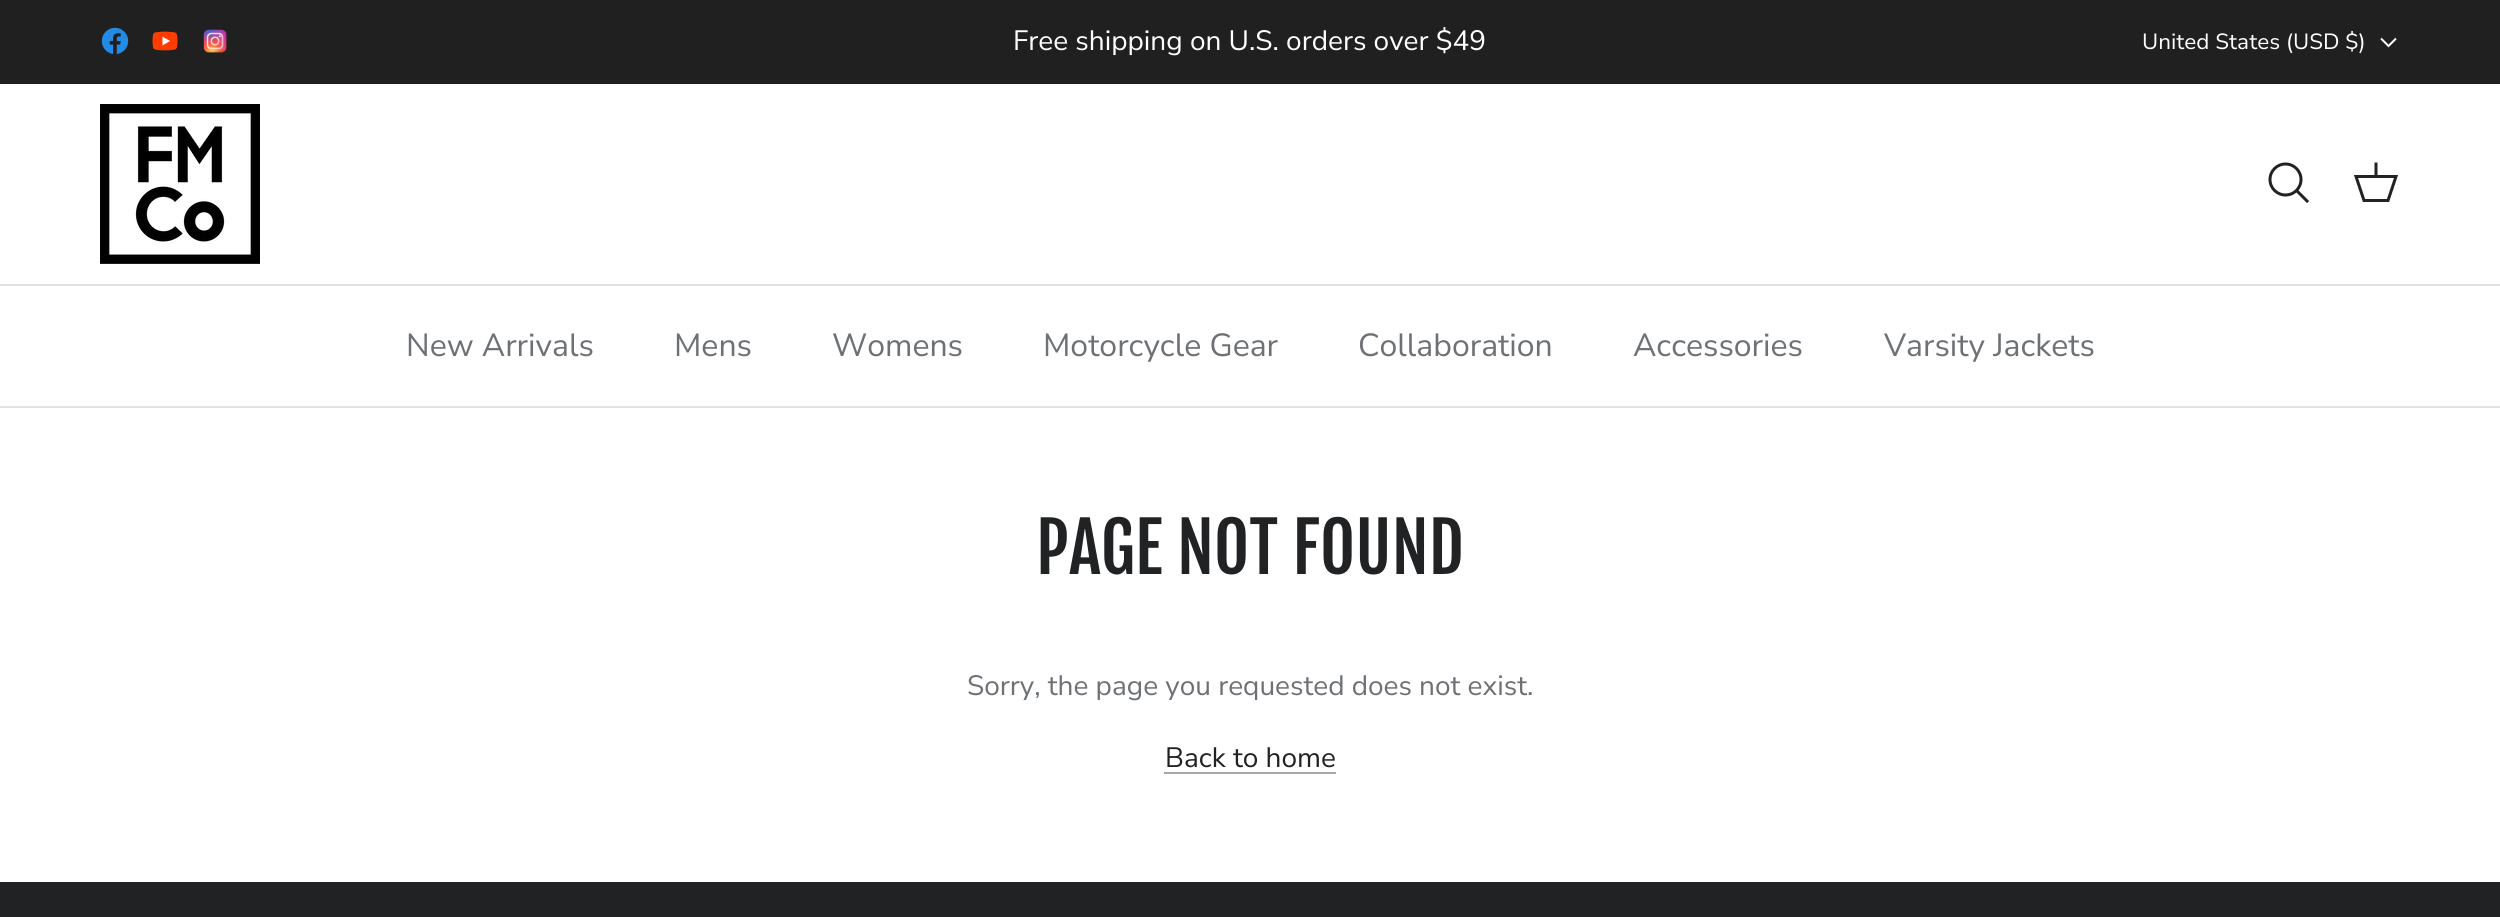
#include <cairo/cairo.h>
#include <math.h>
#include <stddef.h>


static void draw_image(cairo_t *cr, const char *path, double x, double y, double w, double h) {
  cairo_surface_t *image = cairo_image_surface_create_from_png(path);
  cairo_save(cr);
  cairo_set_source_surface(cr, image, x, y);
  cairo_rectangle(cr, x, y, w, h);
  cairo_fill(cr);
  cairo_restore(cr);
  cairo_surface_destroy(image);
}

static void draw(cairo_t *cr) {
  cairo_set_source_rgb(cr, 1, 1, 1);
  cairo_paint(cr);
  cairo_set_source_rgb(cr, 32 / 255.0, 32 / 255.0, 32 / 255.0);
  cairo_rectangle(cr, 0, 0, 2500, 84);
  cairo_fill(cr);
  draw_image(cr, "images/1.png", 101, 27, 28, 27);
  draw_image(cr, "images/2.png", 152, 31, 26, 20);
  draw_image(cr, "images/3.png", 203, 29, 24, 24);
  cairo_new_path(cr);
  cairo_move_to(cr, 2396, 38.5);
  cairo_line_to(cr, 2388.5, 46);
  cairo_line_to(cr, 2381, 38.5);
  cairo_set_source_rgb(cr, 1, 1, 1);
  cairo_stroke(cr);
  cairo_set_source_rgb(cr, 226 / 255.0, 226 / 255.0, 226 / 255.0);
  cairo_rectangle(cr, 0, 284, 2500, 2);
  cairo_fill(cr);
  draw_image(cr, "images/4.png", 100, 104, 160, 160);
  cairo_arc(cr, 2285.5, 179.5, 15.5, 0, 2 * M_PI);
  cairo_set_source_rgb(cr, 32 / 255.0, 34 / 255.0, 35 / 255.0);
  cairo_set_line_width(cr, 3);
  cairo_stroke(cr);
  cairo_new_path(cr);
  cairo_move_to(cr, 2298, 192);
  cairo_line_to(cr, 2307, 201);
  cairo_set_line_cap(cr, CAIRO_LINE_CAP_SQUARE);
  cairo_stroke(cr);
  cairo_new_path(cr);
  cairo_move_to(cr, 2356, 176.5);
  cairo_line_to(cr, 2396, 176.5);
  cairo_line_to(cr, 2388, 200.5);
  cairo_line_to(cr, 2364, 200.5);
  cairo_close_path(cr);
  cairo_set_line_cap(cr, CAIRO_LINE_CAP_BUTT);
  cairo_stroke(cr);
  cairo_new_path(cr);
  cairo_move_to(cr, 2376, 176);
  cairo_line_to(cr, 2376, 164);
  cairo_set_line_cap(cr, CAIRO_LINE_CAP_SQUARE);
  cairo_stroke(cr);
  cairo_set_source_rgb(cr, 226 / 255.0, 226 / 255.0, 226 / 255.0);
  cairo_rectangle(cr, 0, 406, 2500, 2);
  cairo_fill(cr);
  cairo_set_source_rgb(cr, 166 / 255.0, 167 / 255.0, 167 / 255.0);
  cairo_rectangle(cr, 1164, 772, 172, 2);
  cairo_fill(cr);
  cairo_set_source_rgb(cr, 32 / 255.0, 34 / 255.0, 35 / 255.0);
  cairo_rectangle(cr, 0, 882, 2500, 35);
  cairo_fill(cr);
  cairo_select_font_face(cr, "Nunito Sans", CAIRO_FONT_SLANT_NORMAL, CAIRO_FONT_WEIGHT_NORMAL);
  cairo_set_font_size(cr, 28);
  cairo_set_source_rgb(cr, 1, 1, 1);
  cairo_move_to(cr, 1013, 50);
  cairo_show_text(cr, "Free shipping on U.S. orders over $49");
  cairo_select_font_face(cr, "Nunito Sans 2", CAIRO_FONT_SLANT_NORMAL, CAIRO_FONT_WEIGHT_NORMAL);
  cairo_set_font_size(cr, 22);
  cairo_move_to(cr, 2142, 49);
  cairo_show_text(cr, "United States (USD $)");
  cairo_select_font_face(cr, "Nunito Sans", CAIRO_FONT_SLANT_NORMAL, CAIRO_FONT_WEIGHT_NORMAL);
  cairo_set_font_size(cr, 32);
  cairo_set_source_rgb(cr, 109 / 255.0, 113 / 255.0, 117 / 255.0);
  cairo_move_to(cr, 406, 356);
  cairo_show_text(cr, "New Arrivals");
  cairo_move_to(cr, 674, 356);
  cairo_show_text(cr, "Mens");
  cairo_move_to(cr, 832, 356);
  cairo_show_text(cr, "Womens");
  cairo_move_to(cr, 1043, 356);
  cairo_show_text(cr, "Motorcycle Gear");
  cairo_move_to(cr, 1358, 356);
  cairo_show_text(cr, "Collaboration");
  cairo_move_to(cr, 1633, 356);
  cairo_show_text(cr, "Accessories");
  cairo_move_to(cr, 1884, 356);
  cairo_show_text(cr, "Varsity Jackets");
  cairo_select_font_face(cr, "Fjalla One", CAIRO_FONT_SLANT_NORMAL, CAIRO_FONT_WEIGHT_NORMAL);
  cairo_set_font_size(cr, 68);
  cairo_set_source_rgb(cr, 32 / 255.0, 34 / 255.0, 35 / 255.0);
  cairo_move_to(cr, 1036, 574);
  cairo_show_text(cr, "PAGE NOT FOUND");
  cairo_select_font_face(cr, "Nunito Sans", CAIRO_FONT_SLANT_NORMAL, CAIRO_FONT_WEIGHT_NORMAL);
  cairo_set_font_size(cr, 28);
  cairo_set_source_rgb(cr, 109 / 255.0, 113 / 255.0, 117 / 255.0);
  cairo_move_to(cr, 967, 695);
  cairo_show_text(cr, "Sorry, the page you requested does not exist.");
  cairo_set_source_rgb(cr, 32 / 255.0, 34 / 255.0, 35 / 255.0);
  cairo_move_to(cr, 1165, 767);
  cairo_show_text(cr, "Back to home");
}

int main(void) {
  cairo_surface_t *surface = cairo_image_surface_create(CAIRO_FORMAT_RGB24, 2500, 917);
  cairo_t *cr = cairo_create(surface);
  cairo_font_options_t *options = cairo_font_options_create();
  cairo_font_options_set_hint_metrics(options, CAIRO_HINT_METRICS_OFF);
  cairo_font_options_set_hint_style(options, CAIRO_HINT_STYLE_NONE);
  cairo_set_font_options(cr, options);
  cairo_set_miter_limit(cr, 4);
  draw(cr);
  cairo_surface_write_to_png(surface, "out.png");
  cairo_font_options_destroy(options);
  cairo_destroy(cr);
  cairo_surface_destroy(surface);
  return 0;
}
